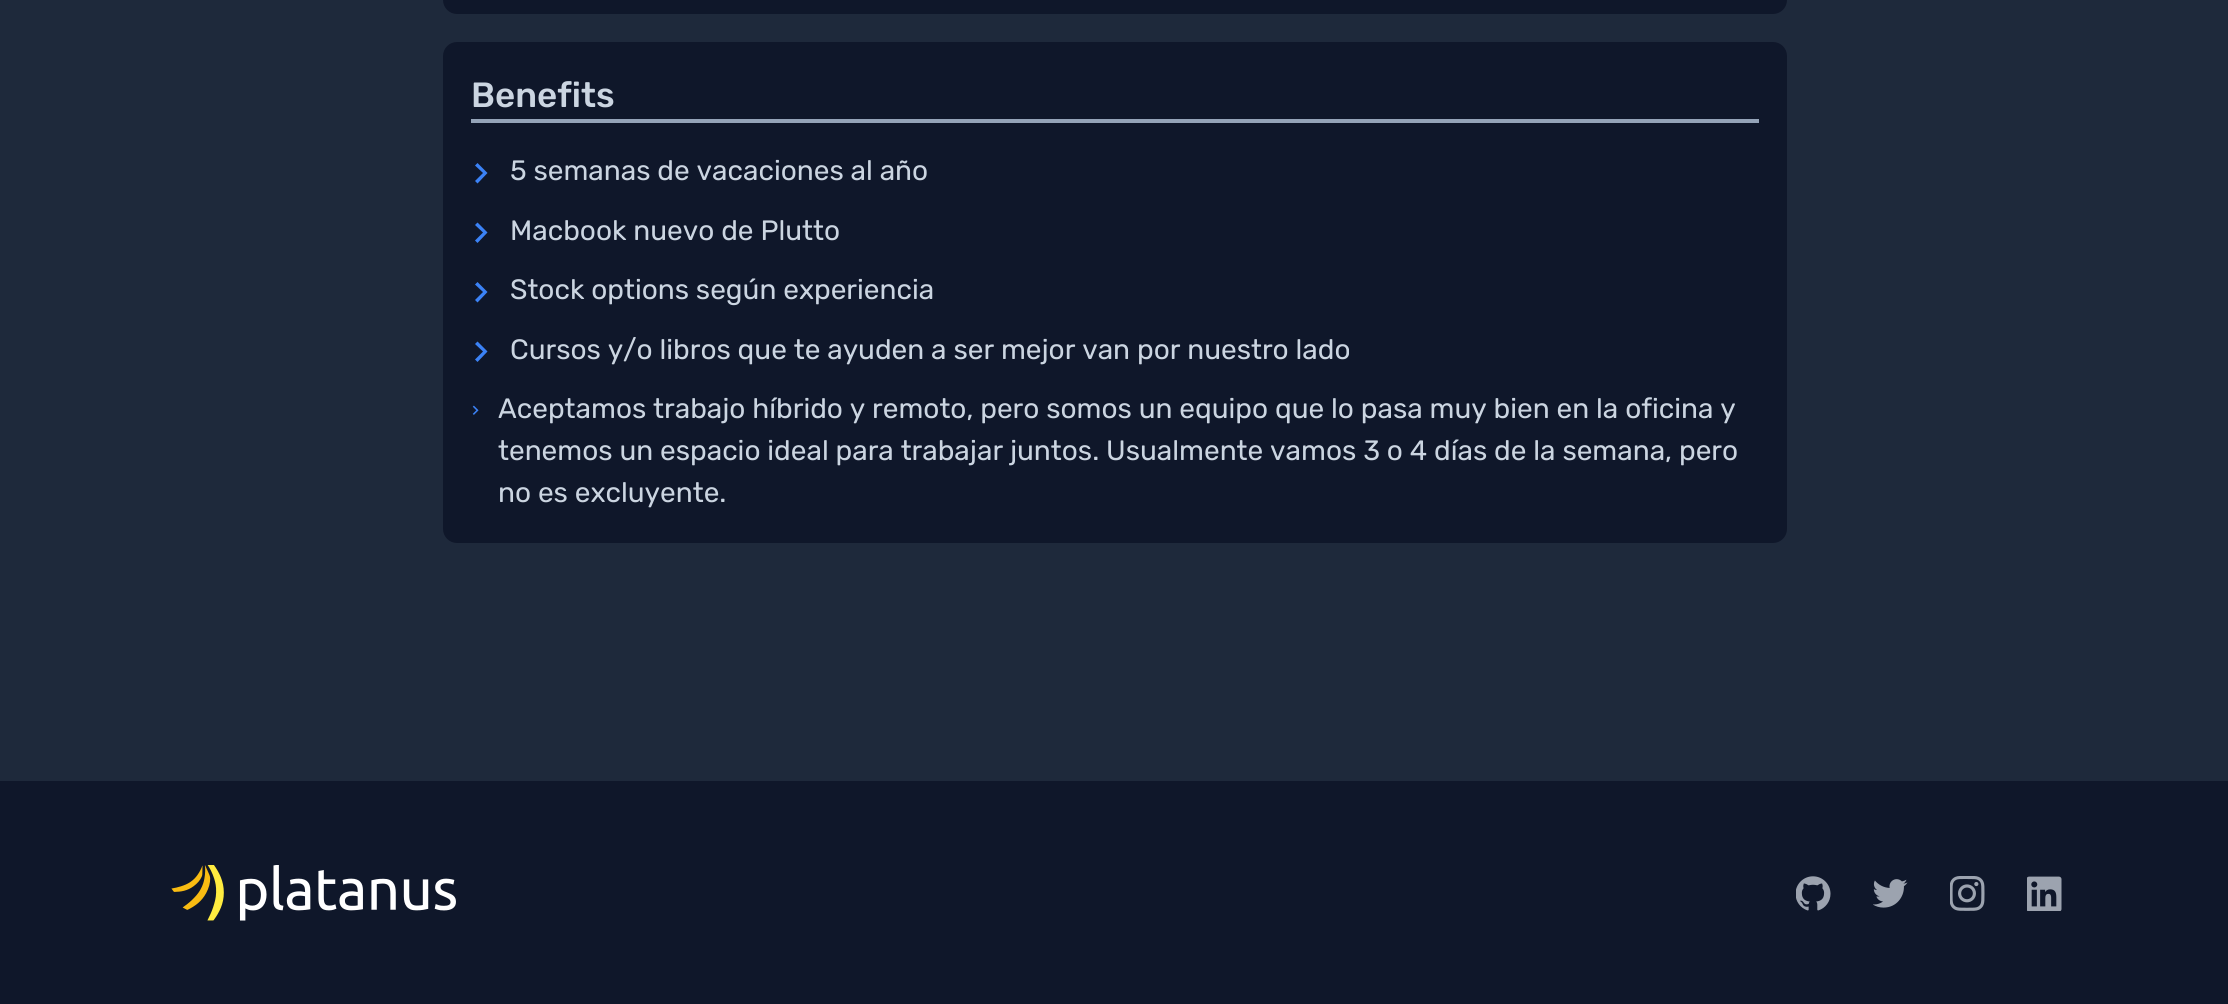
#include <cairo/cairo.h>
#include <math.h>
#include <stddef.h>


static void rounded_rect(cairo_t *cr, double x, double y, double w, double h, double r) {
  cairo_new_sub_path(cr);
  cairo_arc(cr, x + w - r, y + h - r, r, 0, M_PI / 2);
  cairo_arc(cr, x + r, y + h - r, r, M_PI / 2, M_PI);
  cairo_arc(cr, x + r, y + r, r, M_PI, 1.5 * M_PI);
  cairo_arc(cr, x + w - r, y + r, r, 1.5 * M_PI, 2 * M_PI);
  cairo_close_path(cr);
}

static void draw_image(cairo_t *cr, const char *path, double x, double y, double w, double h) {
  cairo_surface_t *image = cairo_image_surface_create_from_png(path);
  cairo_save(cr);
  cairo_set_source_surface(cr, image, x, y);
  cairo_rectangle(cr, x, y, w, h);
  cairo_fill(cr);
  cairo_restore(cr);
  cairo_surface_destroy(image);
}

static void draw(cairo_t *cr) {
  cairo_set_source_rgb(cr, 30 / 255.0, 41 / 255.0, 59 / 255.0);
  cairo_paint(cr);
  cairo_set_source_rgb(cr, 15 / 255.0, 23 / 255.0, 42 / 255.0);
  rounded_rect(cr, 443, -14, 1344, 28, 14);
  cairo_fill(cr);
  rounded_rect(cr, 443, 42, 1344, 501, 14);
  cairo_fill(cr);
  cairo_set_source_rgb(cr, 148 / 255.0, 163 / 255.0, 184 / 255.0);
  cairo_rectangle(cr, 471, 119, 1288, 4);
  cairo_fill(cr);
  cairo_set_source_rgb(cr, 59 / 255.0, 130 / 255.0, 246 / 255.0);
  cairo_new_path(cr);
  cairo_move_to(cr, 475, 165.5);
  cairo_line_to(cr, 483, 173);
  cairo_line_to(cr, 475, 181);
  cairo_line_to(cr, 477.5, 183.5);
  cairo_line_to(cr, 487.5, 173);
  cairo_line_to(cr, 477.5, 163);
  cairo_close_path(cr);
  cairo_fill(cr);
  cairo_new_path(cr);
  cairo_move_to(cr, 475, 225);
  cairo_line_to(cr, 483, 232.5);
  cairo_line_to(cr, 475, 240.5);
  cairo_line_to(cr, 477.5, 243);
  cairo_line_to(cr, 487.5, 232.5);
  cairo_line_to(cr, 477.5, 222.5);
  cairo_close_path(cr);
  cairo_fill(cr);
  cairo_new_path(cr);
  cairo_move_to(cr, 475, 284.5);
  cairo_line_to(cr, 483, 292);
  cairo_line_to(cr, 475, 300);
  cairo_line_to(cr, 477.5, 302.5);
  cairo_line_to(cr, 487.5, 292);
  cairo_line_to(cr, 477.5, 282);
  cairo_close_path(cr);
  cairo_fill(cr);
  cairo_new_path(cr);
  cairo_move_to(cr, 475, 344);
  cairo_line_to(cr, 483, 351.5);
  cairo_line_to(cr, 475, 359.5);
  cairo_line_to(cr, 477.5, 362);
  cairo_line_to(cr, 487.5, 351.5);
  cairo_line_to(cr, 477.5, 341.5);
  cairo_close_path(cr);
  cairo_fill(cr);
  draw_image(cr, "images/1.png", 472, 405, 7, 10);
  cairo_set_source_rgb(cr, 15 / 255.0, 23 / 255.0, 42 / 255.0);
  cairo_rectangle(cr, 0, 781, 2228, 223);
  cairo_fill(cr);
  draw_image(cr, "images/2.png", 171, 865, 285, 56);
  draw_image(cr, "images/3.png", 1796, 876, 35, 35);
  draw_image(cr, "images/4.png", 1873, 879, 35, 29);
  draw_image(cr, "images/5.png", 1950, 876, 35, 35);
  draw_image(cr, "images/6.png", 2027, 876, 35, 35);
  cairo_select_font_face(cr, "Rubik Medium", CAIRO_FONT_SLANT_NORMAL, CAIRO_FONT_WEIGHT_NORMAL);
  cairo_set_font_size(cr, 35);
  cairo_set_source_rgb(cr, 203 / 255.0, 213 / 255.0, 225 / 255.0);
  cairo_move_to(cr, 471, 107);
  cairo_show_text(cr, "Benefits");
  cairo_select_font_face(cr, "Rubik", CAIRO_FONT_SLANT_NORMAL, CAIRO_FONT_WEIGHT_NORMAL);
  cairo_set_font_size(cr, 28);
  cairo_move_to(cr, 510, 180);
  cairo_show_text(cr, "5 semanas de vacaciones al año");
  cairo_move_to(cr, 510, 240);
  cairo_show_text(cr, "Macbook nuevo de Plutto");
  cairo_move_to(cr, 510, 299);
  cairo_show_text(cr, "Stock options según experiencia");
  cairo_move_to(cr, 510, 359);
  cairo_show_text(cr, "Cursos y/o libros que te ayuden a ser mejor van por nuestro lado");
  cairo_move_to(cr, 498, 418);
  cairo_show_text(cr, "Aceptamos trabajo híbrido y remoto, pero somos un equipo que lo pasa muy bien en la oficina y");
  cairo_move_to(cr, 498, 460);
  cairo_show_text(cr, "tenemos un espacio ideal para trabajar juntos. Usualmente vamos 3 o 4 días de la semana, pero");
  cairo_move_to(cr, 498, 502);
  cairo_show_text(cr, "no es excluyente.");
}

int main(void) {
  cairo_surface_t *surface = cairo_image_surface_create(CAIRO_FORMAT_RGB24, 2228, 1004);
  cairo_t *cr = cairo_create(surface);
  cairo_font_options_t *options = cairo_font_options_create();
  cairo_font_options_set_hint_metrics(options, CAIRO_HINT_METRICS_OFF);
  cairo_font_options_set_hint_style(options, CAIRO_HINT_STYLE_NONE);
  cairo_set_font_options(cr, options);
  cairo_set_miter_limit(cr, 4);
  draw(cr);
  cairo_surface_write_to_png(surface, "out.png");
  cairo_font_options_destroy(options);
  cairo_destroy(cr);
  cairo_surface_destroy(surface);
  return 0;
}
